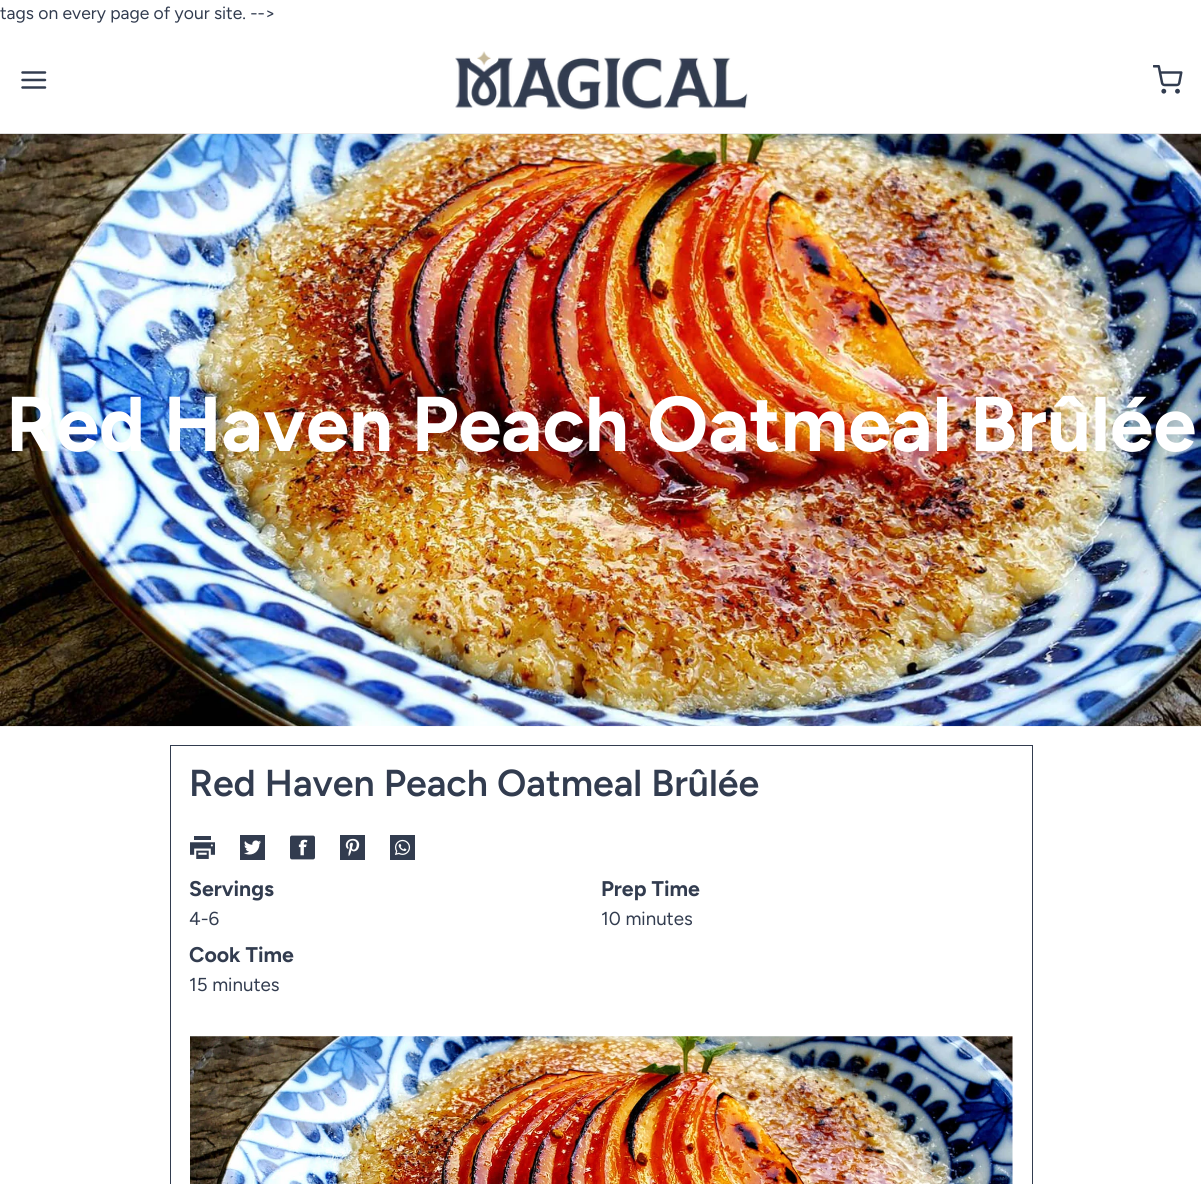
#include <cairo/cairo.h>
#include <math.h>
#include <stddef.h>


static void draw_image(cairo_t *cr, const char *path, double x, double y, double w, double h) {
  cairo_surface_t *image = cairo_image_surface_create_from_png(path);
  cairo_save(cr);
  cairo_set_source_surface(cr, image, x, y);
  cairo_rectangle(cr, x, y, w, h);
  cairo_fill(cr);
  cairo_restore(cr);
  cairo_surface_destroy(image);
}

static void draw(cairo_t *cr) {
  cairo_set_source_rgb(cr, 1, 1, 1);
  cairo_paint(cr);
  cairo_set_source_rgb(cr, 235 / 255.0, 236 / 255.0, 237 / 255.0);
  cairo_rectangle(cr, 0, 133, 1201, 1);
  cairo_fill(cr);
  cairo_new_path(cr);
  cairo_move_to(cr, 22.5, 80);
  cairo_line_to(cr, 45, 80);
  cairo_move_to(cr, 22.5, 72.5);
  cairo_line_to(cr, 45, 72.5);
  cairo_move_to(cr, 22.5, 87.5);
  cairo_line_to(cr, 45, 87.5);
  cairo_set_source_rgb(cr, 50 / 255.0, 60 / 255.0, 79 / 255.0);
  cairo_set_line_width(cr, 2.5);
  cairo_set_line_cap(cr, CAIRO_LINE_CAP_ROUND);
  cairo_set_line_join(cr, CAIRO_LINE_JOIN_ROUND);
  cairo_stroke(cr);
  draw_image(cr, "images/1.png", 455, 51, 293, 59);
  draw_image(cr, "images/2.png", 1153, 65, 30, 29);
  draw_image(cr, "images/3.png", 0, 133, 1201, 594);
  cairo_rectangle(cr, 170.5, 745.5, 862, 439);
  cairo_set_line_width(cr, 1);
  cairo_set_line_cap(cr, CAIRO_LINE_CAP_BUTT);
  cairo_set_line_join(cr, CAIRO_LINE_JOIN_MITER);
  cairo_stroke(cr);
  draw_image(cr, "images/4.png", 190, 836, 25, 23);
  draw_image(cr, "images/5.png", 240, 835, 25, 25);
  draw_image(cr, "images/6.png", 290, 835, 25, 25);
  draw_image(cr, "images/7.png", 340, 835, 25, 25);
  draw_image(cr, "images/8.png", 390, 835, 25, 25);
  draw_image(cr, "images/9.png", 190, 1036, 823, 148);
  cairo_select_font_face(cr, "Figtree", CAIRO_FONT_SLANT_NORMAL, CAIRO_FONT_WEIGHT_NORMAL);
  cairo_set_font_size(cr, 17.5);
  cairo_move_to(cr, 0, 19);
  cairo_show_text(cr, "tags on every page of your site. -->");
  cairo_select_font_face(cr, "Figtree", CAIRO_FONT_SLANT_NORMAL, CAIRO_FONT_WEIGHT_BOLD);
  cairo_set_font_size(cr, 77.5);
  cairo_set_source_rgb(cr, 1, 1, 1);
  cairo_move_to(cr, 6, 451);
  cairo_show_text(cr, "Red Haven Peach Oatmeal Brûlée");
  cairo_select_font_face(cr, "Figtree SemiBold", CAIRO_FONT_SLANT_NORMAL, CAIRO_FONT_WEIGHT_NORMAL);
  cairo_set_font_size(cr, 37.5);
  cairo_set_source_rgb(cr, 50 / 255.0, 60 / 255.0, 79 / 255.0);
  cairo_move_to(cr, 189, 796);
  cairo_show_text(cr, "Red Haven Peach Oatmeal Brûlée");
  cairo_select_font_face(cr, "Figtree", CAIRO_FONT_SLANT_NORMAL, CAIRO_FONT_WEIGHT_BOLD);
  cairo_set_font_size(cr, 21.25);
  cairo_move_to(cr, 189, 896);
  cairo_show_text(cr, "Servings");
  cairo_select_font_face(cr, "Figtree", CAIRO_FONT_SLANT_NORMAL, CAIRO_FONT_WEIGHT_NORMAL);
  cairo_set_font_size(cr, 18.75);
  cairo_move_to(cr, 189, 925);
  cairo_show_text(cr, "4-6");
  cairo_select_font_face(cr, "Figtree", CAIRO_FONT_SLANT_NORMAL, CAIRO_FONT_WEIGHT_BOLD);
  cairo_set_font_size(cr, 21.25);
  cairo_move_to(cr, 601, 896);
  cairo_show_text(cr, "Prep Time");
  cairo_select_font_face(cr, "Figtree", CAIRO_FONT_SLANT_NORMAL, CAIRO_FONT_WEIGHT_NORMAL);
  cairo_set_font_size(cr, 18.75);
  cairo_move_to(cr, 601, 925);
  cairo_show_text(cr, "10 minutes");
  cairo_select_font_face(cr, "Figtree", CAIRO_FONT_SLANT_NORMAL, CAIRO_FONT_WEIGHT_BOLD);
  cairo_set_font_size(cr, 21.25);
  cairo_move_to(cr, 189, 962);
  cairo_show_text(cr, "Cook Time");
  cairo_select_font_face(cr, "Figtree", CAIRO_FONT_SLANT_NORMAL, CAIRO_FONT_WEIGHT_NORMAL);
  cairo_set_font_size(cr, 18.75);
  cairo_move_to(cr, 189, 991);
  cairo_show_text(cr, "15 minutes");
}

int main(void) {
  cairo_surface_t *surface = cairo_image_surface_create(CAIRO_FORMAT_RGB24, 1201, 1184);
  cairo_t *cr = cairo_create(surface);
  cairo_font_options_t *options = cairo_font_options_create();
  cairo_font_options_set_hint_metrics(options, CAIRO_HINT_METRICS_OFF);
  cairo_font_options_set_hint_style(options, CAIRO_HINT_STYLE_NONE);
  cairo_set_font_options(cr, options);
  cairo_set_miter_limit(cr, 4);
  draw(cr);
  cairo_surface_write_to_png(surface, "out.png");
  cairo_font_options_destroy(options);
  cairo_destroy(cr);
  cairo_surface_destroy(surface);
  return 0;
}
